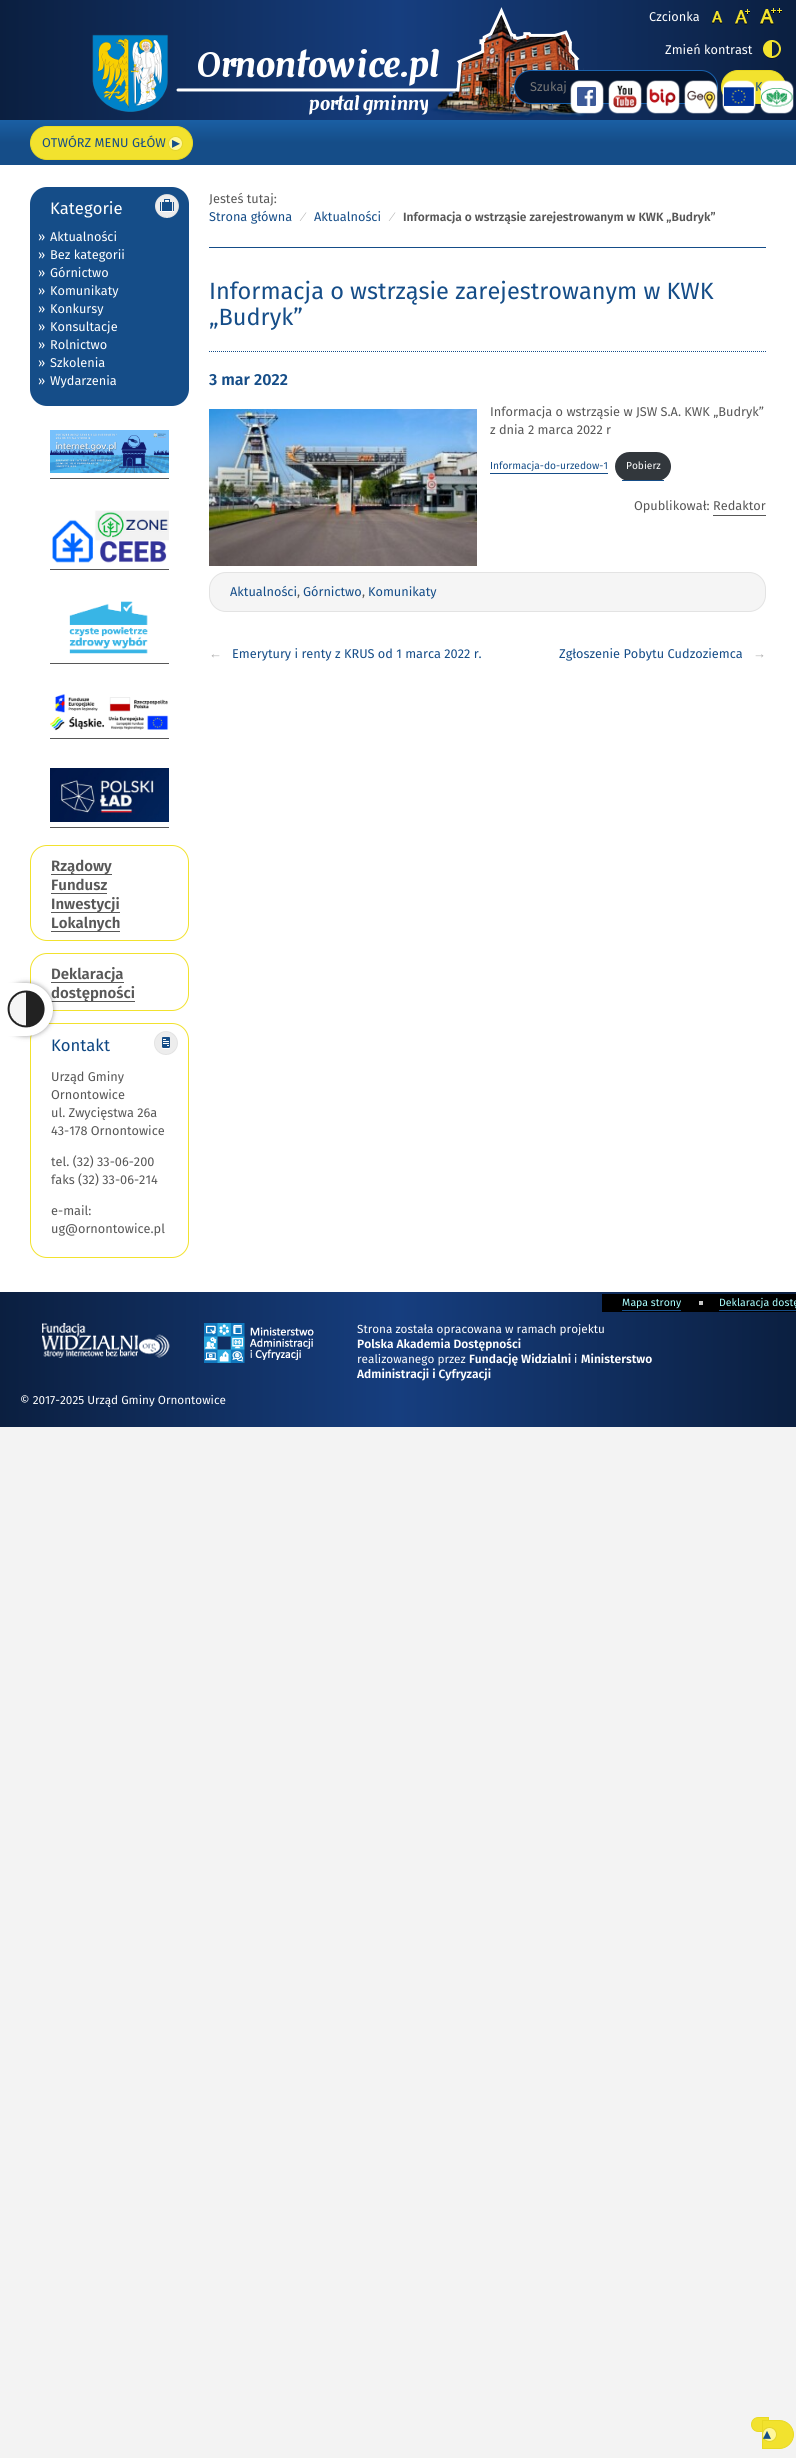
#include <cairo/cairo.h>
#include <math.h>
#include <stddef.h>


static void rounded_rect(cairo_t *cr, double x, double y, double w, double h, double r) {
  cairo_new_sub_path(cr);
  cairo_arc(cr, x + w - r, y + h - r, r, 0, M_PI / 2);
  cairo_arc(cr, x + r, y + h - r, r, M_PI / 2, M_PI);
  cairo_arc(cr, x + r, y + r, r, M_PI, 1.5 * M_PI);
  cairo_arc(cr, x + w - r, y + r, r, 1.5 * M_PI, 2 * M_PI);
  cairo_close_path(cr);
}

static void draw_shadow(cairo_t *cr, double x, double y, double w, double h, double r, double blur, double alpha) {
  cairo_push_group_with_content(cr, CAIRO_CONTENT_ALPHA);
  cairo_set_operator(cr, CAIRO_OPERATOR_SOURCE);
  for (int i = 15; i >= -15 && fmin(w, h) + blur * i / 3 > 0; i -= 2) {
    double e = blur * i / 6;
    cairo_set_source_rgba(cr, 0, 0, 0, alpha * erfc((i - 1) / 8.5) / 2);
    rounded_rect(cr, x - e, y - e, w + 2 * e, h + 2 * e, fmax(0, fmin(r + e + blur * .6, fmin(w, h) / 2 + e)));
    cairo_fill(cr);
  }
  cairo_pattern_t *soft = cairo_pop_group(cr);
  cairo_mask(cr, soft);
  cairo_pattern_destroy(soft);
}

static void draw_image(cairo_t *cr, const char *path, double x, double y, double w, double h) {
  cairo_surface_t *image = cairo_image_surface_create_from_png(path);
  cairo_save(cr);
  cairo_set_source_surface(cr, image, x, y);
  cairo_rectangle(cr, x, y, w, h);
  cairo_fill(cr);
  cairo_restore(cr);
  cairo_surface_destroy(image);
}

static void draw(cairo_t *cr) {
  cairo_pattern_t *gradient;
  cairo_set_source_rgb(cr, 243 / 255.0, 243 / 255.0, 243 / 255.0);
  cairo_paint(cr);
  gradient = cairo_pattern_create_linear(0, 60, 796, 60);
  cairo_pattern_add_color_stop_rgba(gradient, 0, 11 / 255.0, 31 / 255.0, 64 / 255.0, 1);
  cairo_pattern_add_color_stop_rgba(gradient, 0.5, 22 / 255.0, 62 / 255.0, 127 / 255.0, 1);
  cairo_pattern_add_color_stop_rgba(gradient, 1, 11 / 255.0, 31 / 255.0, 64 / 255.0, 1);
  cairo_set_source(cr, gradient);
  cairo_pattern_destroy(gradient);
  cairo_rectangle(cr, 0, 0, 796, 120);
  cairo_fill(cr);
  draw_image(cr, "images/1.png", 92, 7, 495, 111);
  draw_image(cr, "images/2.png", 712, 11, 11, 13);
  draw_image(cr, "images/3.png", 735, 9, 15, 16);
  draw_image(cr, "images/4.png", 760, 8, 22, 17);
  draw_image(cr, "images/5.png", 763, 40, 18, 19);
  cairo_set_source_rgb(cr, 6 / 255.0, 22 / 255.0, 48 / 255.0);
  rounded_rect(cr, 514.5, 70.5, 203, 33, 16.5);
  cairo_fill_preserve(cr);
  cairo_set_source_rgb(cr, 24 / 255.0, 97 / 255.0, 173 / 255.0);
  cairo_set_line_width(cr, 1);
  cairo_stroke(cr);
  draw_image(cr, "images/6.png", 570, 80, 34, 34);
  draw_image(cr, "images/7.png", 608, 80, 34, 34);
  draw_image(cr, "images/8.png", 646, 80, 34, 34);
  draw_image(cr, "images/9.png", 684, 80, 34, 34);
  cairo_set_source_rgb(cr, 242 / 255.0, 226 / 255.0, 46 / 255.0);
  rounded_rect(cr, 721.5, 70.5, 64, 33, 16.5);
  cairo_fill_preserve(cr);
  cairo_set_source_rgb(cr, 233 / 255.0, 217 / 255.0, 35 / 255.0);
  cairo_stroke(cr);
  draw_image(cr, "images/10.png", 722, 80, 34, 34);
  gradient = cairo_pattern_create_linear(398, 120, 398, 165);
  cairo_pattern_add_color_stop_rgba(gradient, 0, 26 / 255.0, 95 / 255.0, 164 / 255.0, 1);
  cairo_pattern_add_color_stop_rgba(gradient, 0.5, 21 / 255.0, 77 / 255.0, 136 / 255.0, 1);
  cairo_pattern_add_color_stop_rgba(gradient, 1, 21 / 255.0, 77 / 255.0, 136 / 255.0, 1);
  cairo_set_source(cr, gradient);
  cairo_pattern_destroy(gradient);
  cairo_rectangle(cr, 0, 120, 796, 45);
  cairo_fill(cr);
  cairo_set_source_rgb(cr, 242 / 255.0, 226 / 255.0, 46 / 255.0);
  rounded_rect(cr, 30.5, 126.5, 162, 33, 16.5);
  cairo_fill_preserve(cr);
  cairo_set_source_rgb(cr, 233 / 255.0, 217 / 255.0, 35 / 255.0);
  cairo_stroke(cr);
  cairo_set_source_rgb(cr, 1, 247 / 255.0, 156 / 255.0);
  cairo_arc(cr, 175.5, 143.5, 7, 0, 2 * M_PI);
  cairo_fill_preserve(cr);
  cairo_set_source_rgb(cr, 228 / 255.0, 213 / 255.0, 41 / 255.0);
  cairo_stroke(cr);
  cairo_set_source_rgb(cr, 1, 1, 1);
  cairo_rectangle(cr, 0, 165, 796, 1127);
  cairo_fill(cr);
  cairo_set_source_rgb(cr, 21 / 255.0, 77 / 255.0, 136 / 255.0);
  rounded_rect(cr, 30, 187, 159, 219, 17);
  cairo_fill(cr);
  draw_image(cr, "images/12.png", 155, 194, 24, 24);
  draw_image(cr, "images/13.png", 50, 430, 119, 43);
  cairo_set_source_rgb(cr, 87 / 255.0, 87 / 255.0, 87 / 255.0);
  cairo_rectangle(cr, 50, 478, 119, 1);
  cairo_fill(cr);
  draw_image(cr, "images/14.png", 52, 510, 117, 53);
  cairo_rectangle(cr, 50, 569, 119, 1);
  cairo_fill(cr);
  draw_image(cr, "images/15.png", 69, 601, 79, 53);
  cairo_rectangle(cr, 50, 663, 119, 1);
  cairo_fill(cr);
  draw_image(cr, "images/16.png", 50, 694, 119, 37);
  cairo_rectangle(cr, 50, 738, 119, 1);
  cairo_fill(cr);
  draw_image(cr, "images/17.png", 50, 768, 119, 54);
  cairo_rectangle(cr, 50, 827, 119, 1);
  cairo_fill(cr);
  rounded_rect(cr, 30.5, 845.5, 158, 95, 16.5);
  cairo_set_source_rgb(cr, 242 / 255.0, 226 / 255.0, 46 / 255.0);
  cairo_stroke(cr);
  cairo_set_source_rgb(cr, 87 / 255.0, 87 / 255.0, 87 / 255.0);
  cairo_rectangle(cr, 51, 874, 61, 1);
  cairo_fill(cr);
  cairo_rectangle(cr, 51, 893, 56, 1);
  cairo_fill(cr);
  cairo_rectangle(cr, 51, 912, 69, 1);
  cairo_fill(cr);
  cairo_rectangle(cr, 51, 931, 69, 1);
  cairo_fill(cr);
  rounded_rect(cr, 30.5, 953.5, 158, 57, 16.5);
  cairo_set_source_rgb(cr, 242 / 255.0, 226 / 255.0, 46 / 255.0);
  cairo_stroke(cr);
  cairo_set_source_rgb(cr, 87 / 255.0, 87 / 255.0, 87 / 255.0);
  cairo_rectangle(cr, 51, 982, 73, 1);
  cairo_fill(cr);
  cairo_rectangle(cr, 51, 1001, 84, 1);
  cairo_fill(cr);
  rounded_rect(cr, 30.5, 1023.5, 158, 234, 16.5);
  cairo_set_source_rgb(cr, 242 / 255.0, 226 / 255.0, 46 / 255.0);
  cairo_stroke(cr);
  draw_image(cr, "images/18.png", 154, 1031, 24, 24);
  cairo_set_source_rgb(cr, 21 / 255.0, 77 / 255.0, 136 / 255.0);
  cairo_rectangle(cr, 209, 247, 557, 1);
  cairo_fill(cr);
  cairo_new_path(cr);
  cairo_move_to(cr, 209, 351.5);
  cairo_line_to(cr, 766, 351.5);
  cairo_set_dash(cr, (double[]){1, 1}, 2, 0);
  cairo_stroke(cr);
  draw_image(cr, "images/19.png", 209, 409, 268, 157);
  cairo_rectangle(cr, 490, 473, 118, 1);
  cairo_fill(cr);
  cairo_set_source_rgb(cr, 50 / 255.0, 55 / 255.0, 60 / 255.0);
  rounded_rect(cr, 615, 452, 56, 29, 14.5);
  cairo_fill(cr);
  cairo_set_source_rgb(cr, 21 / 255.0, 77 / 255.0, 136 / 255.0);
  cairo_rectangle(cr, 622, 480, 42, 1);
  cairo_fill(cr);
  cairo_set_source_rgb(cr, 87 / 255.0, 87 / 255.0, 87 / 255.0);
  cairo_rectangle(cr, 713, 515, 53, 1);
  cairo_fill(cr);
  cairo_set_source_rgb(cr, 245 / 255.0, 245 / 255.0, 245 / 255.0);
  rounded_rect(cr, 209.5, 572.5, 556, 39, 16.5);
  cairo_fill_preserve(cr);
  cairo_set_source_rgb(cr, 227 / 255.0, 227 / 255.0, 227 / 255.0);
  cairo_set_dash(cr, NULL, 0, 0);
  cairo_stroke(cr);
  gradient = cairo_pattern_create_linear(0, 1360, 796, 1360);
  cairo_pattern_add_color_stop_rgba(gradient, 0, 11 / 255.0, 31 / 255.0, 64 / 255.0, 1);
  cairo_pattern_add_color_stop_rgba(gradient, 0.5, 22 / 255.0, 62 / 255.0, 127 / 255.0, 1);
  cairo_pattern_add_color_stop_rgba(gradient, 1, 11 / 255.0, 31 / 255.0, 64 / 255.0, 1);
  cairo_set_source(cr, gradient);
  cairo_pattern_destroy(gradient);
  cairo_rectangle(cr, 0, 1292, 796, 135);
  cairo_fill(cr);
  cairo_set_source_rgb(cr, 0, 0, 0);
  cairo_rectangle(cr, 602, 1294, 194, 18);
  cairo_fill(cr);
  cairo_set_source_rgb(cr, 21 / 255.0, 77 / 255.0, 136 / 255.0);
  cairo_rectangle(cr, 622, 1310, 59, 1);
  cairo_fill(cr);
  cairo_set_source_rgb(cr, 200 / 255.0, 200 / 255.0, 200 / 255.0);
  cairo_rectangle(cr, 699, 1301, 4, 4);
  cairo_fill(cr);
  cairo_set_source_rgb(cr, 21 / 255.0, 77 / 255.0, 136 / 255.0);
  cairo_rectangle(cr, 719, 1310, 77, 1);
  cairo_fill(cr);
  draw_image(cr, "images/20.png", 42, 1323, 128, 35);
  draw_image(cr, "images/21.png", 204, 1323, 110, 40);
  cairo_set_source_rgb(cr, 242 / 255.0, 226 / 255.0, 46 / 255.0);
  cairo_new_path(cr);
  cairo_move_to(cr, 758.5, 2417.5);
  cairo_line_to(cr, 768.5, 2417.5);
  cairo_line_to(cr, 768.5, 2431.5);
  cairo_line_to(cr, 758.5, 2431.5);
  cairo_curve_to(cr, 754.5, 2431.5, 751.5, 2428.5, 751.5, 2424.5);
  cairo_curve_to(cr, 751.5, 2420.5, 754.5, 2417.5, 758.5, 2417.5);
  cairo_close_path(cr);
  cairo_fill_preserve(cr);
  cairo_set_source_rgb(cr, 233 / 255.0, 217 / 255.0, 35 / 255.0);
  cairo_stroke(cr);
  cairo_set_source_rgb(cr, 242 / 255.0, 226 / 255.0, 46 / 255.0);
  cairo_new_path(cr);
  cairo_move_to(cr, 762.5, 2420.5);
  cairo_line_to(cr, 779.5, 2420.5);
  cairo_curve_to(cr, 787, 2420.5, 793.5, 2427, 793.5, 2434.5);
  cairo_curve_to(cr, 793.5, 2442, 787, 2448.5, 779.5, 2448.5);
  cairo_line_to(cr, 762.5, 2448.5);
  cairo_close_path(cr);
  cairo_fill_preserve(cr);
  cairo_set_source_rgb(cr, 233 / 255.0, 217 / 255.0, 35 / 255.0);
  cairo_stroke(cr);
  cairo_set_source_rgb(cr, 1, 247 / 255.0, 156 / 255.0);
  cairo_arc(cr, 769.5, 2434.5, 7, 0, 2 * M_PI);
  cairo_fill_preserve(cr);
  cairo_set_source_rgb(cr, 228 / 255.0, 213 / 255.0, 41 / 255.0);
  cairo_stroke(cr);
  cairo_set_source_rgb(cr, 0, 0, 0);
  draw_shadow(cr, 0, 983, 53, 53, 26.5, 2.5, 0.4);
  cairo_select_font_face(cr, "Fira Sans", CAIRO_FONT_SLANT_NORMAL, CAIRO_FONT_WEIGHT_NORMAL);
  cairo_set_font_size(cr, 13);
  cairo_set_source_rgb(cr, 1, 1, 1);
  cairo_move_to(cr, 649, 21);
  cairo_show_text(cr, "Czcionka");
  cairo_move_to(cr, 665, 54);
  cairo_show_text(cr, "Zmień kontrast");
  cairo_set_source_rgb(cr, 117 / 255.0, 117 / 255.0, 117 / 255.0);
  cairo_move_to(cr, 530, 91);
  cairo_show_text(cr, "Szukaj");
  cairo_set_source_rgb(cr, 21 / 255.0, 77 / 255.0, 136 / 255.0);
  cairo_move_to(cr, 755, 91);
  cairo_show_text(cr, "K");
  draw_image(cr, "images/11.png", 760, 80, 34, 34);
  cairo_move_to(cr, 42, 147);
  cairo_show_text(cr, "OTWÓRZ MENU GŁÓW");
  cairo_select_font_face(cr, "DejaVu Sans", CAIRO_FONT_SLANT_NORMAL, CAIRO_FONT_WEIGHT_NORMAL);
  cairo_set_font_size(cr, 16);
  cairo_move_to(cr, 172, 148);
  cairo_show_text(cr, "▸");
  cairo_select_font_face(cr, "Fira Sans", CAIRO_FONT_SLANT_NORMAL, CAIRO_FONT_WEIGHT_NORMAL);
  cairo_set_font_size(cr, 17);
  cairo_set_source_rgb(cr, 1, 1, 1);
  cairo_move_to(cr, 50, 214);
  cairo_show_text(cr, "Kategorie");
  cairo_set_font_size(cr, 13);
  cairo_move_to(cr, 38, 241);
  cairo_show_text(cr, "»");
  cairo_move_to(cr, 50, 241);
  cairo_show_text(cr, "Aktualności");
  cairo_move_to(cr, 38, 259);
  cairo_show_text(cr, "»");
  cairo_move_to(cr, 50, 259);
  cairo_show_text(cr, "Bez kategorii");
  cairo_move_to(cr, 38, 277);
  cairo_show_text(cr, "»");
  cairo_move_to(cr, 50, 277);
  cairo_show_text(cr, "Górnictwo");
  cairo_move_to(cr, 38, 295);
  cairo_show_text(cr, "»");
  cairo_move_to(cr, 50, 295);
  cairo_show_text(cr, "Komunikaty");
  cairo_move_to(cr, 38, 313);
  cairo_show_text(cr, "»");
  cairo_move_to(cr, 50, 313);
  cairo_show_text(cr, "Konkursy");
  cairo_move_to(cr, 38, 331);
  cairo_show_text(cr, "»");
  cairo_move_to(cr, 50, 331);
  cairo_show_text(cr, "Konsultacje");
  cairo_move_to(cr, 38, 349);
  cairo_show_text(cr, "»");
  cairo_move_to(cr, 50, 349);
  cairo_show_text(cr, "Rolnictwo");
  cairo_move_to(cr, 38, 367);
  cairo_show_text(cr, "»");
  cairo_move_to(cr, 50, 367);
  cairo_show_text(cr, "Szkolenia");
  cairo_move_to(cr, 38, 385);
  cairo_show_text(cr, "»");
  cairo_move_to(cr, 50, 385);
  cairo_show_text(cr, "Wydarzenia");
  cairo_select_font_face(cr, "Fira Sans SemiBold", CAIRO_FONT_SLANT_NORMAL, CAIRO_FONT_WEIGHT_NORMAL);
  cairo_set_font_size(cr, 15);
  cairo_set_source_rgb(cr, 87 / 255.0, 87 / 255.0, 87 / 255.0);
  cairo_move_to(cr, 51, 871);
  cairo_show_text(cr, "Rządowy");
  cairo_move_to(cr, 51, 890);
  cairo_show_text(cr, "Fundusz");
  cairo_move_to(cr, 51, 909);
  cairo_show_text(cr, "Inwestycji");
  cairo_move_to(cr, 51, 928);
  cairo_show_text(cr, "Lokalnych");
  cairo_move_to(cr, 51, 979);
  cairo_show_text(cr, "Deklaracja");
  cairo_move_to(cr, 51, 998);
  cairo_show_text(cr, "dostępności");
  cairo_select_font_face(cr, "Fira Sans", CAIRO_FONT_SLANT_NORMAL, CAIRO_FONT_WEIGHT_NORMAL);
  cairo_set_font_size(cr, 17);
  cairo_set_source_rgb(cr, 13 / 255.0, 70 / 255.0, 130 / 255.0);
  cairo_move_to(cr, 51, 1051);
  cairo_show_text(cr, "Kontakt");
  cairo_set_font_size(cr, 13);
  cairo_set_source_rgb(cr, 87 / 255.0, 87 / 255.0, 87 / 255.0);
  cairo_move_to(cr, 51, 1081);
  cairo_show_text(cr, "Urząd Gminy");
  cairo_move_to(cr, 51, 1099);
  cairo_show_text(cr, "Ornontowice");
  cairo_move_to(cr, 51, 1117);
  cairo_show_text(cr, "ul. Zwycięstwa 26a");
  cairo_move_to(cr, 51, 1135);
  cairo_show_text(cr, "43-178 Ornontowice");
  cairo_move_to(cr, 51, 1166);
  cairo_show_text(cr, "tel. (32) 33-06-200");
  cairo_move_to(cr, 51, 1184);
  cairo_show_text(cr, "faks (32) 33-06-214");
  cairo_move_to(cr, 51, 1215);
  cairo_show_text(cr, "e-mail:");
  cairo_move_to(cr, 51, 1233);
  cairo_show_text(cr, "ug@ornontowice.pl");
  cairo_move_to(cr, 209, 203);
  cairo_show_text(cr, "Jesteś tutaj:");
  cairo_set_source_rgb(cr, 21 / 255.0, 77 / 255.0, 136 / 255.0);
  cairo_move_to(cr, 209, 221);
  cairo_show_text(cr, "Strona główna");
  cairo_select_font_face(cr, "Liberation Serif", CAIRO_FONT_SLANT_NORMAL, CAIRO_FONT_WEIGHT_NORMAL);
  cairo_set_source_rgb(cr, 170 / 255.0, 170 / 255.0, 170 / 255.0);
  cairo_move_to(cr, 302, 221);
  cairo_show_text(cr, "∕");
  cairo_select_font_face(cr, "Fira Sans", CAIRO_FONT_SLANT_NORMAL, CAIRO_FONT_WEIGHT_NORMAL);
  cairo_set_source_rgb(cr, 21 / 255.0, 77 / 255.0, 136 / 255.0);
  cairo_move_to(cr, 314, 221);
  cairo_show_text(cr, "Aktualności");
  cairo_select_font_face(cr, "Liberation Serif", CAIRO_FONT_SLANT_NORMAL, CAIRO_FONT_WEIGHT_NORMAL);
  cairo_set_source_rgb(cr, 170 / 255.0, 170 / 255.0, 170 / 255.0);
  cairo_move_to(cr, 391, 221);
  cairo_show_text(cr, "∕");
  cairo_select_font_face(cr, "Fira Sans SemiBold", CAIRO_FONT_SLANT_NORMAL, CAIRO_FONT_WEIGHT_NORMAL);
  cairo_set_font_size(cr, 12);
  cairo_set_source_rgb(cr, 87 / 255.0, 87 / 255.0, 87 / 255.0);
  cairo_move_to(cr, 403, 221);
  cairo_show_text(cr, "Informacja o wstrząsie zarejestrowanym w KWK „Budryk”");
  cairo_select_font_face(cr, "Fira Sans", CAIRO_FONT_SLANT_NORMAL, CAIRO_FONT_WEIGHT_NORMAL);
  cairo_set_font_size(cr, 24);
  cairo_set_source_rgb(cr, 21 / 255.0, 77 / 255.0, 136 / 255.0);
  cairo_move_to(cr, 209, 299);
  cairo_show_text(cr, "Informacja o wstrząsie zarejestrowanym w KWK");
  cairo_move_to(cr, 209, 325);
  cairo_show_text(cr, "„Budryk”");
  cairo_select_font_face(cr, "Fira Sans SemiBold", CAIRO_FONT_SLANT_NORMAL, CAIRO_FONT_WEIGHT_NORMAL);
  cairo_set_font_size(cr, 16);
  cairo_move_to(cr, 209, 385);
  cairo_show_text(cr, "3 mar");
  cairo_move_to(cr, 254, 385);
  cairo_show_text(cr, "2022");
  cairo_select_font_face(cr, "Fira Sans", CAIRO_FONT_SLANT_NORMAL, CAIRO_FONT_WEIGHT_NORMAL);
  cairo_set_font_size(cr, 13);
  cairo_set_source_rgb(cr, 87 / 255.0, 87 / 255.0, 87 / 255.0);
  cairo_move_to(cr, 490, 416);
  cairo_show_text(cr, "Informacja o wstrząsie w JSW S.A. KWK „Budryk”");
  cairo_move_to(cr, 490, 434);
  cairo_show_text(cr, "z dnia 2 marca 2022 r");
  cairo_set_font_size(cr, 10.4);
  cairo_set_source_rgb(cr, 21 / 255.0, 77 / 255.0, 136 / 255.0);
  cairo_move_to(cr, 490, 469);
  cairo_show_text(cr, "Informacja-do-urzedow-1");
  cairo_set_source_rgb(cr, 1, 1, 1);
  cairo_move_to(cr, 626, 469);
  cairo_show_text(cr, "Pobierz");
  cairo_set_font_size(cr, 13);
  cairo_set_source_rgb(cr, 87 / 255.0, 87 / 255.0, 87 / 255.0);
  cairo_move_to(cr, 634, 510);
  cairo_show_text(cr, "Opublikował: Redaktor");
  cairo_set_source_rgb(cr, 21 / 255.0, 77 / 255.0, 136 / 255.0);
  cairo_move_to(cr, 230, 596);
  cairo_show_text(cr, "Aktualności");
  cairo_set_source_rgb(cr, 87 / 255.0, 87 / 255.0, 87 / 255.0);
  cairo_move_to(cr, 297, 596);
  cairo_show_text(cr, ",");
  cairo_set_source_rgb(cr, 21 / 255.0, 77 / 255.0, 136 / 255.0);
  cairo_move_to(cr, 303, 596);
  cairo_show_text(cr, "Górnictwo");
  cairo_set_source_rgb(cr, 87 / 255.0, 87 / 255.0, 87 / 255.0);
  cairo_move_to(cr, 362, 596);
  cairo_show_text(cr, ",");
  cairo_set_source_rgb(cr, 21 / 255.0, 77 / 255.0, 136 / 255.0);
  cairo_move_to(cr, 368, 596);
  cairo_show_text(cr, "Komunikaty");
  cairo_select_font_face(cr, "Liberation Serif", CAIRO_FONT_SLANT_NORMAL, CAIRO_FONT_WEIGHT_NORMAL);
  cairo_set_source_rgb(cr, 170 / 255.0, 170 / 255.0, 170 / 255.0);
  cairo_move_to(cr, 209, 658);
  cairo_show_text(cr, "←");
  cairo_select_font_face(cr, "Fira Sans", CAIRO_FONT_SLANT_NORMAL, CAIRO_FONT_WEIGHT_NORMAL);
  cairo_set_source_rgb(cr, 21 / 255.0, 77 / 255.0, 136 / 255.0);
  cairo_move_to(cr, 232, 658);
  cairo_show_text(cr, "Emerytury i renty z KRUS od 1 marca 2022 r.");
  cairo_move_to(cr, 559, 658);
  cairo_show_text(cr, "Zgłoszenie Pobytu Cudzoziemca");
  cairo_select_font_face(cr, "Liberation Serif", CAIRO_FONT_SLANT_NORMAL, CAIRO_FONT_WEIGHT_NORMAL);
  cairo_set_source_rgb(cr, 170 / 255.0, 170 / 255.0, 170 / 255.0);
  cairo_move_to(cr, 753, 658);
  cairo_show_text(cr, "→");
  cairo_select_font_face(cr, "Fira Sans", CAIRO_FONT_SLANT_NORMAL, CAIRO_FONT_WEIGHT_NORMAL);
  cairo_set_font_size(cr, 10.75);
  cairo_set_source_rgb(cr, 170 / 255.0, 1, 1);
  cairo_move_to(cr, 622, 1306);
  cairo_show_text(cr, "Mapa strony");
  cairo_move_to(cr, 719, 1306);
  cairo_show_text(cr, "Deklaracja dostę");
  cairo_set_font_size(cr, 12);
  cairo_set_source_rgb(cr, 1, 1, 1);
  cairo_move_to(cr, 357, 1333);
  cairo_show_text(cr, "Strona została opracowana w ramach projektu");
  cairo_select_font_face(cr, "Fira Sans SemiBold", CAIRO_FONT_SLANT_NORMAL, CAIRO_FONT_WEIGHT_NORMAL);
  cairo_move_to(cr, 357, 1348);
  cairo_show_text(cr, "Polska Akademia Dostępności");
  cairo_select_font_face(cr, "Fira Sans", CAIRO_FONT_SLANT_NORMAL, CAIRO_FONT_WEIGHT_NORMAL);
  cairo_move_to(cr, 357, 1363);
  cairo_show_text(cr, "realizowanego przez");
  cairo_select_font_face(cr, "Fira Sans SemiBold", CAIRO_FONT_SLANT_NORMAL, CAIRO_FONT_WEIGHT_NORMAL);
  cairo_move_to(cr, 469, 1363);
  cairo_show_text(cr, "Fundację Widzialni");
  cairo_select_font_face(cr, "Fira Sans", CAIRO_FONT_SLANT_NORMAL, CAIRO_FONT_WEIGHT_NORMAL);
  cairo_move_to(cr, 574, 1363);
  cairo_show_text(cr, "i");
  cairo_select_font_face(cr, "Fira Sans SemiBold", CAIRO_FONT_SLANT_NORMAL, CAIRO_FONT_WEIGHT_NORMAL);
  cairo_move_to(cr, 581, 1363);
  cairo_show_text(cr, "Ministerstwo");
  cairo_move_to(cr, 357, 1378);
  cairo_show_text(cr, "Administracji i Cyfryzacji");
  cairo_select_font_face(cr, "Fira Sans", CAIRO_FONT_SLANT_NORMAL, CAIRO_FONT_WEIGHT_NORMAL);
  cairo_move_to(cr, 20, 1404);
  cairo_show_text(cr, "© 2017-2025 Urząd Gminy Ornontowice");
  cairo_select_font_face(cr, "DejaVu Sans", CAIRO_FONT_SLANT_NORMAL, CAIRO_FONT_WEIGHT_NORMAL);
  cairo_set_font_size(cr, 16);
  cairo_set_source_rgb(cr, 21 / 255.0, 77 / 255.0, 136 / 255.0);
  cairo_move_to(cr, 763, 2439);
  cairo_show_text(cr, "▴");
  cairo_set_source_rgb(cr, 1, 1, 1);
  cairo_new_path(cr);
  cairo_move_to(cr, 0, 983);
  cairo_line_to(cr, 26.5, 983);
  cairo_curve_to(cr, 41, 983, 53, 995, 53, 1009.5);
  cairo_curve_to(cr, 53, 1024, 41, 1036, 26.5, 1036);
  cairo_line_to(cr, 0, 1036);
  cairo_close_path(cr);
  cairo_fill(cr);
  draw_image(cr, "images/22.png", 7, 990, 38, 38);
}

int main(void) {
  cairo_surface_t *surface = cairo_image_surface_create(CAIRO_FORMAT_RGB24, 796, 2458);
  cairo_t *cr = cairo_create(surface);
  cairo_font_options_t *options = cairo_font_options_create();
  cairo_font_options_set_hint_metrics(options, CAIRO_HINT_METRICS_OFF);
  cairo_font_options_set_hint_style(options, CAIRO_HINT_STYLE_NONE);
  cairo_set_font_options(cr, options);
  cairo_set_miter_limit(cr, 4);
  draw(cr);
  cairo_surface_write_to_png(surface, "out.png");
  cairo_font_options_destroy(options);
  cairo_destroy(cr);
  cairo_surface_destroy(surface);
  return 0;
}
